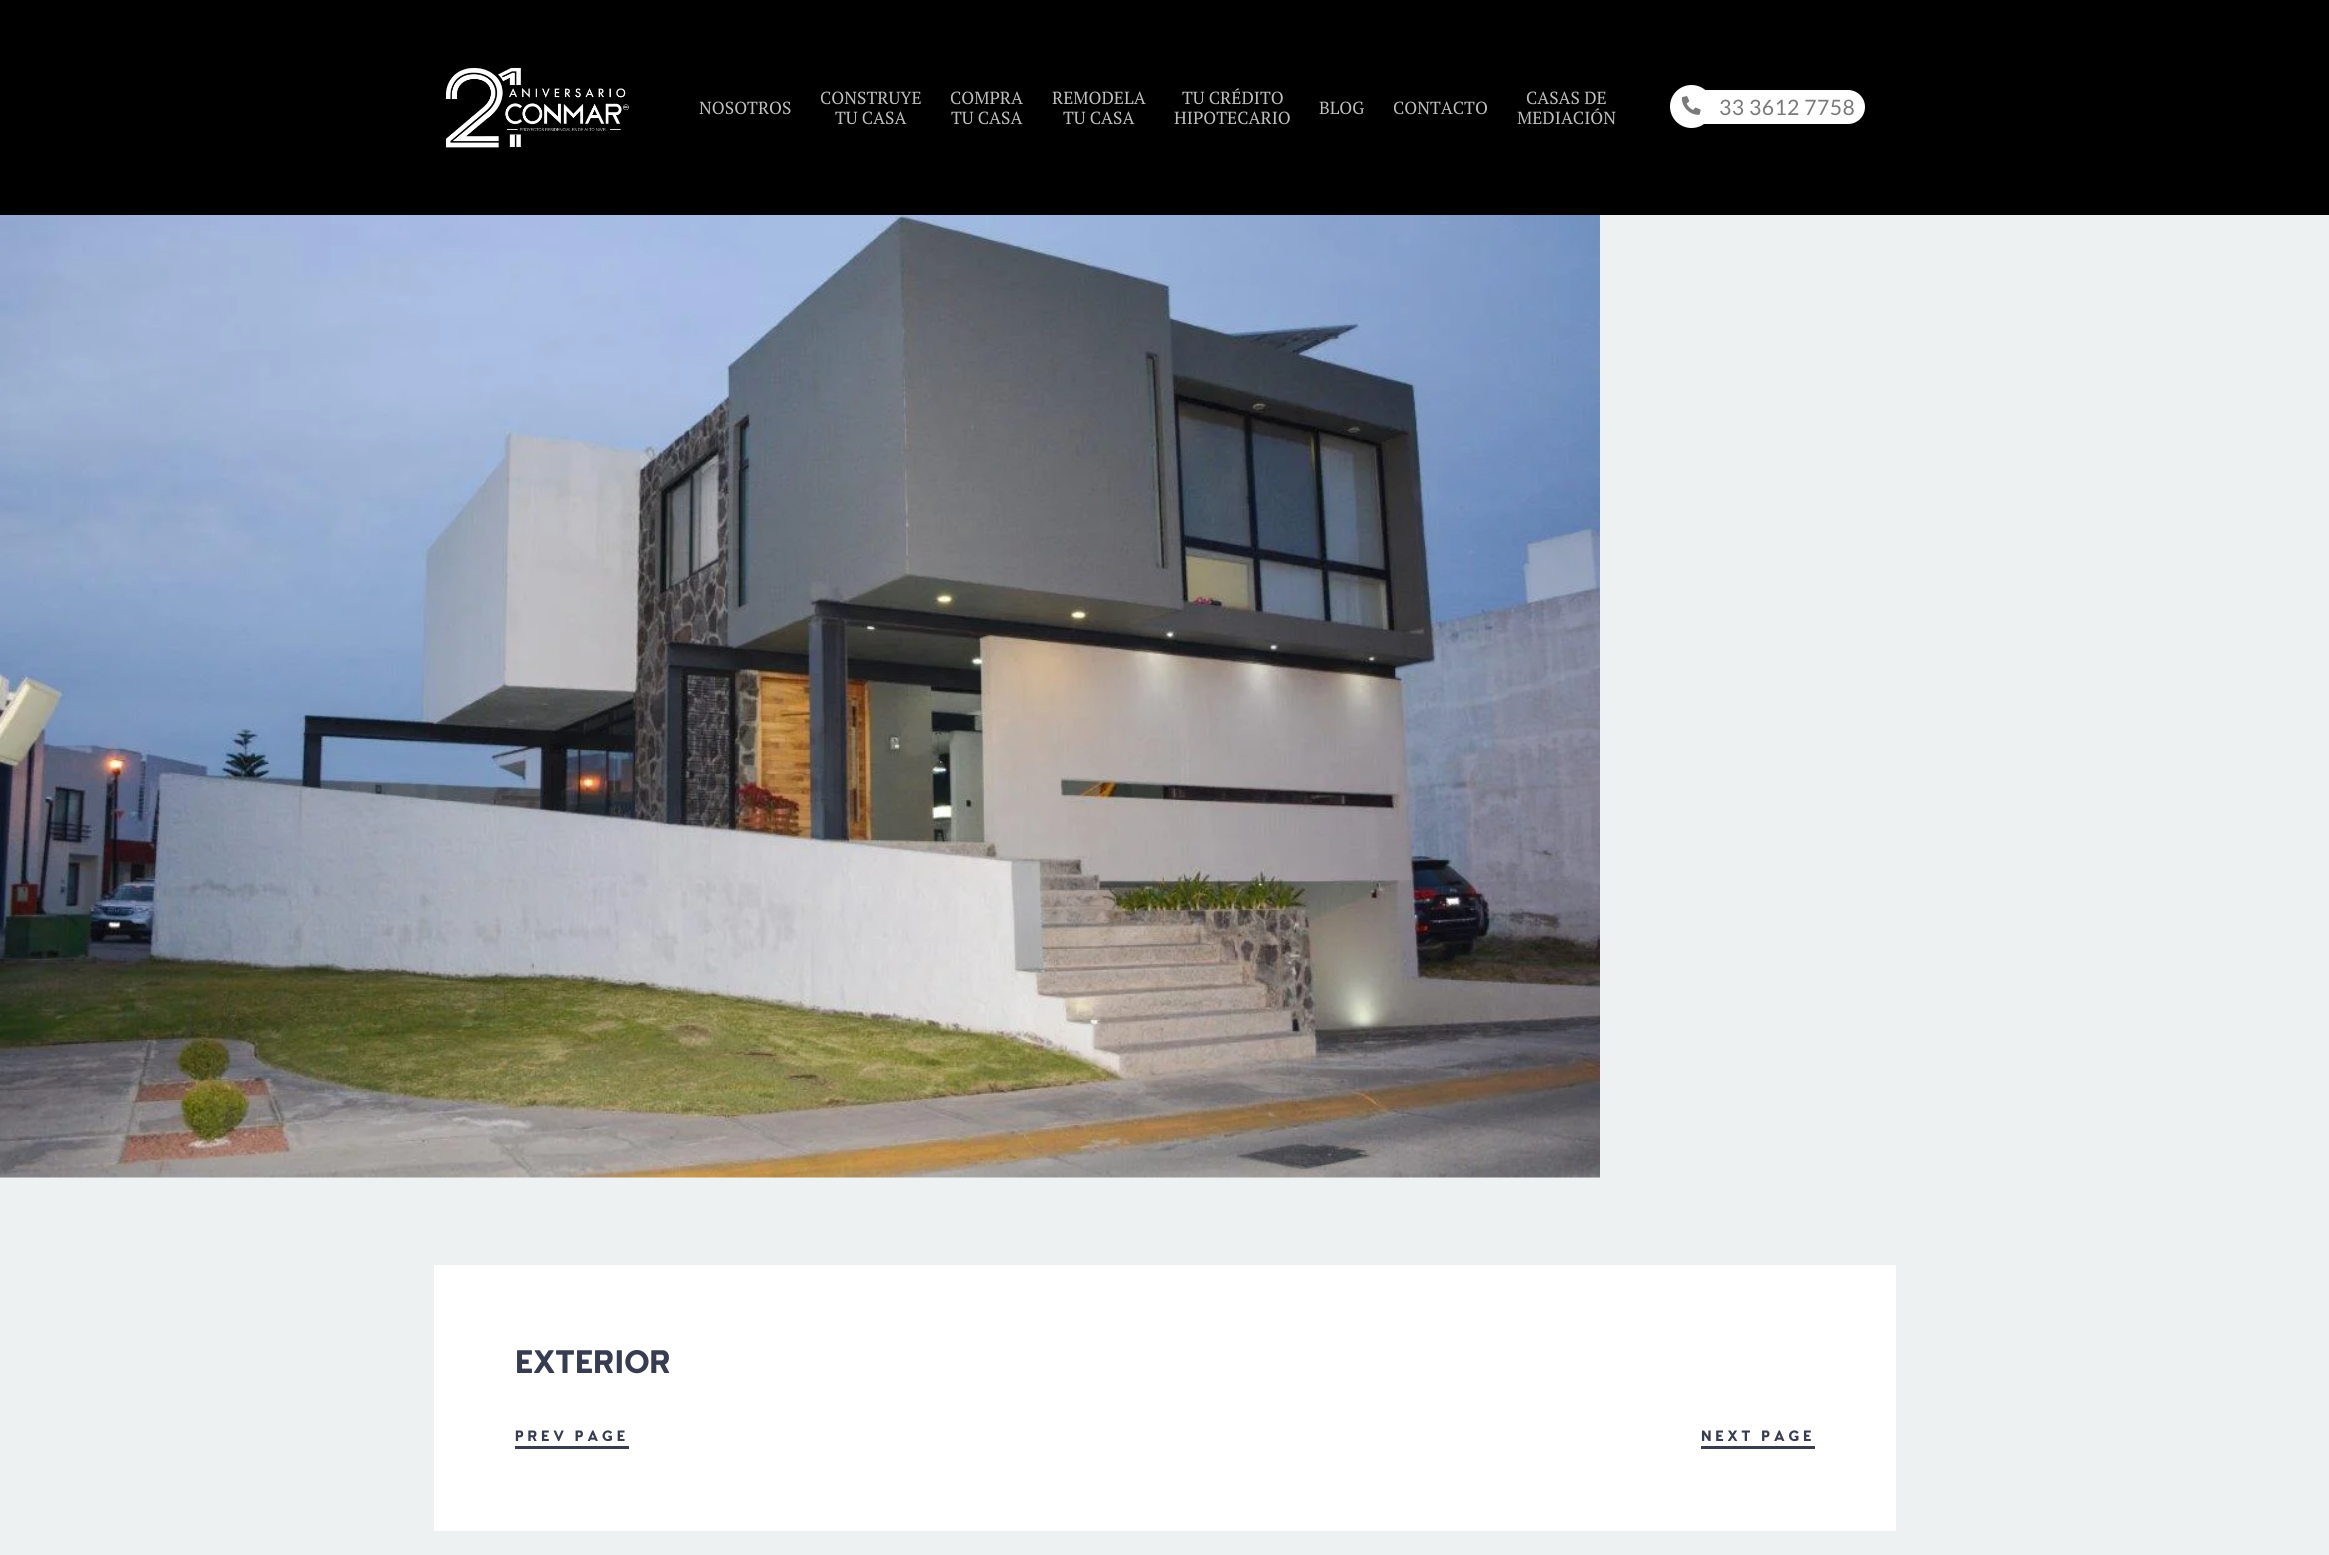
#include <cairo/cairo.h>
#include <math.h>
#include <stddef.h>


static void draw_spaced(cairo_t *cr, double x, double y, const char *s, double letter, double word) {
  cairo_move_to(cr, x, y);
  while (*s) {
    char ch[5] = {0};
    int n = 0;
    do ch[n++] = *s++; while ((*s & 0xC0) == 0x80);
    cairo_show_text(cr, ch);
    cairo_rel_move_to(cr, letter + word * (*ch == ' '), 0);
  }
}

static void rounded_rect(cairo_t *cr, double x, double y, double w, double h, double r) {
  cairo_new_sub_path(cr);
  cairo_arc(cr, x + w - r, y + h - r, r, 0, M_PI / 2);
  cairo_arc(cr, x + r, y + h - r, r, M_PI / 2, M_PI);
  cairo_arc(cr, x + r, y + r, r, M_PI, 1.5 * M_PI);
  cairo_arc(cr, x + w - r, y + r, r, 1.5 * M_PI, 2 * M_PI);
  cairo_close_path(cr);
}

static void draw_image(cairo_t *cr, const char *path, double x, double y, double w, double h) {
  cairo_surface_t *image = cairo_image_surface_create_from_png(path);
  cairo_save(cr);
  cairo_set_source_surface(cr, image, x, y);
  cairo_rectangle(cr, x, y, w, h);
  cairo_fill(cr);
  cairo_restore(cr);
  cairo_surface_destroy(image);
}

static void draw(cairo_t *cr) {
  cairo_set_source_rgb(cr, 238 / 255.0, 241 / 255.0, 242 / 255.0);
  cairo_paint(cr);
  cairo_set_source_rgb(cr, 0, 0, 0);
  cairo_rectangle(cr, 0, 0, 2329, 215);
  cairo_fill(cr);
  draw_image(cr, "images/1.png", 445, 67, 184, 81);
  cairo_set_source_rgb(cr, 1, 1, 1);
  rounded_rect(cr, 1671, 90, 194, 34, 17);
  cairo_fill(cr);
  cairo_arc(cr, 1691.5, 106.5, 21.5, 0, 2 * M_PI);
  cairo_fill(cr);
  draw_image(cr, "images/2.png", 1681, 96, 20, 19);
  draw_image(cr, "images/3.png", 0, 215, 1600, 963);
  cairo_rectangle(cr, 434, 1265, 1462, 266);
  cairo_fill(cr);
  cairo_set_source_rgb(cr, 56 / 255.0, 60 / 255.0, 80 / 255.0);
  cairo_rectangle(cr, 515, 1446, 114, 3);
  cairo_fill(cr);
  cairo_rectangle(cr, 1701, 1446, 114, 3);
  cairo_fill(cr);
  cairo_select_font_face(cr, "PT Serif", CAIRO_FONT_SLANT_NORMAL, CAIRO_FONT_WEIGHT_NORMAL);
  cairo_set_font_size(cr, 17.5);
  cairo_set_source_rgb(cr, 190 / 255.0, 190 / 255.0, 190 / 255.0);
  cairo_move_to(cr, 699, 114);
  cairo_show_text(cr, "NOSOTROS");
  cairo_move_to(cr, 820, 104);
  cairo_show_text(cr, "CONSTRUYE");
  cairo_move_to(cr, 835, 124);
  cairo_show_text(cr, "TU CASA");
  cairo_move_to(cr, 950, 104);
  cairo_show_text(cr, "COMPRA");
  cairo_move_to(cr, 951, 124);
  cairo_show_text(cr, "TU CASA");
  cairo_move_to(cr, 1052, 104);
  cairo_show_text(cr, "REMODELA");
  cairo_move_to(cr, 1063, 124);
  cairo_show_text(cr, "TU CASA");
  cairo_move_to(cr, 1182, 104);
  cairo_show_text(cr, "TU CRÉDITO");
  cairo_move_to(cr, 1174, 124);
  cairo_show_text(cr, "HIPOTECARIO");
  cairo_move_to(cr, 1319, 114);
  cairo_show_text(cr, "BLOG");
  cairo_move_to(cr, 1393, 114);
  cairo_show_text(cr, "CONTACTO");
  cairo_move_to(cr, 1526, 104);
  cairo_show_text(cr, "CASAS DE");
  cairo_move_to(cr, 1517, 124);
  cairo_show_text(cr, "MEDIACIÓN");
  cairo_select_font_face(cr, "Lato", CAIRO_FONT_SLANT_NORMAL, CAIRO_FONT_WEIGHT_NORMAL);
  cairo_set_font_size(cr, 21.25);
  cairo_set_source_rgb(cr, 122 / 255.0, 122 / 255.0, 122 / 255.0);
  draw_spaced(cr, 1719, 115, "33 3612 7758", 0.4, 0);
  cairo_select_font_face(cr, "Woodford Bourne", CAIRO_FONT_SLANT_NORMAL, CAIRO_FONT_WEIGHT_BOLD);
  cairo_set_font_size(cr, 32.5);
  cairo_set_source_rgb(cr, 56 / 255.0, 60 / 255.0, 80 / 255.0);
  cairo_move_to(cr, 515, 1373);
  cairo_show_text(cr, "EXTERIOR");
  cairo_set_font_size(cr, 15);
  draw_spaced(cr, 515, 1441, "PREV PAGE", 3.75, 0);
  draw_spaced(cr, 1701, 1441, "NEXT PAGE", 3.75, 0);
}

int main(void) {
  cairo_surface_t *surface = cairo_image_surface_create(CAIRO_FORMAT_RGB24, 2329, 1555);
  cairo_t *cr = cairo_create(surface);
  cairo_font_options_t *options = cairo_font_options_create();
  cairo_font_options_set_hint_metrics(options, CAIRO_HINT_METRICS_OFF);
  cairo_font_options_set_hint_style(options, CAIRO_HINT_STYLE_NONE);
  cairo_set_font_options(cr, options);
  cairo_set_miter_limit(cr, 4);
  draw(cr);
  cairo_surface_write_to_png(surface, "out.png");
  cairo_font_options_destroy(options);
  cairo_destroy(cr);
  cairo_surface_destroy(surface);
  return 0;
}
